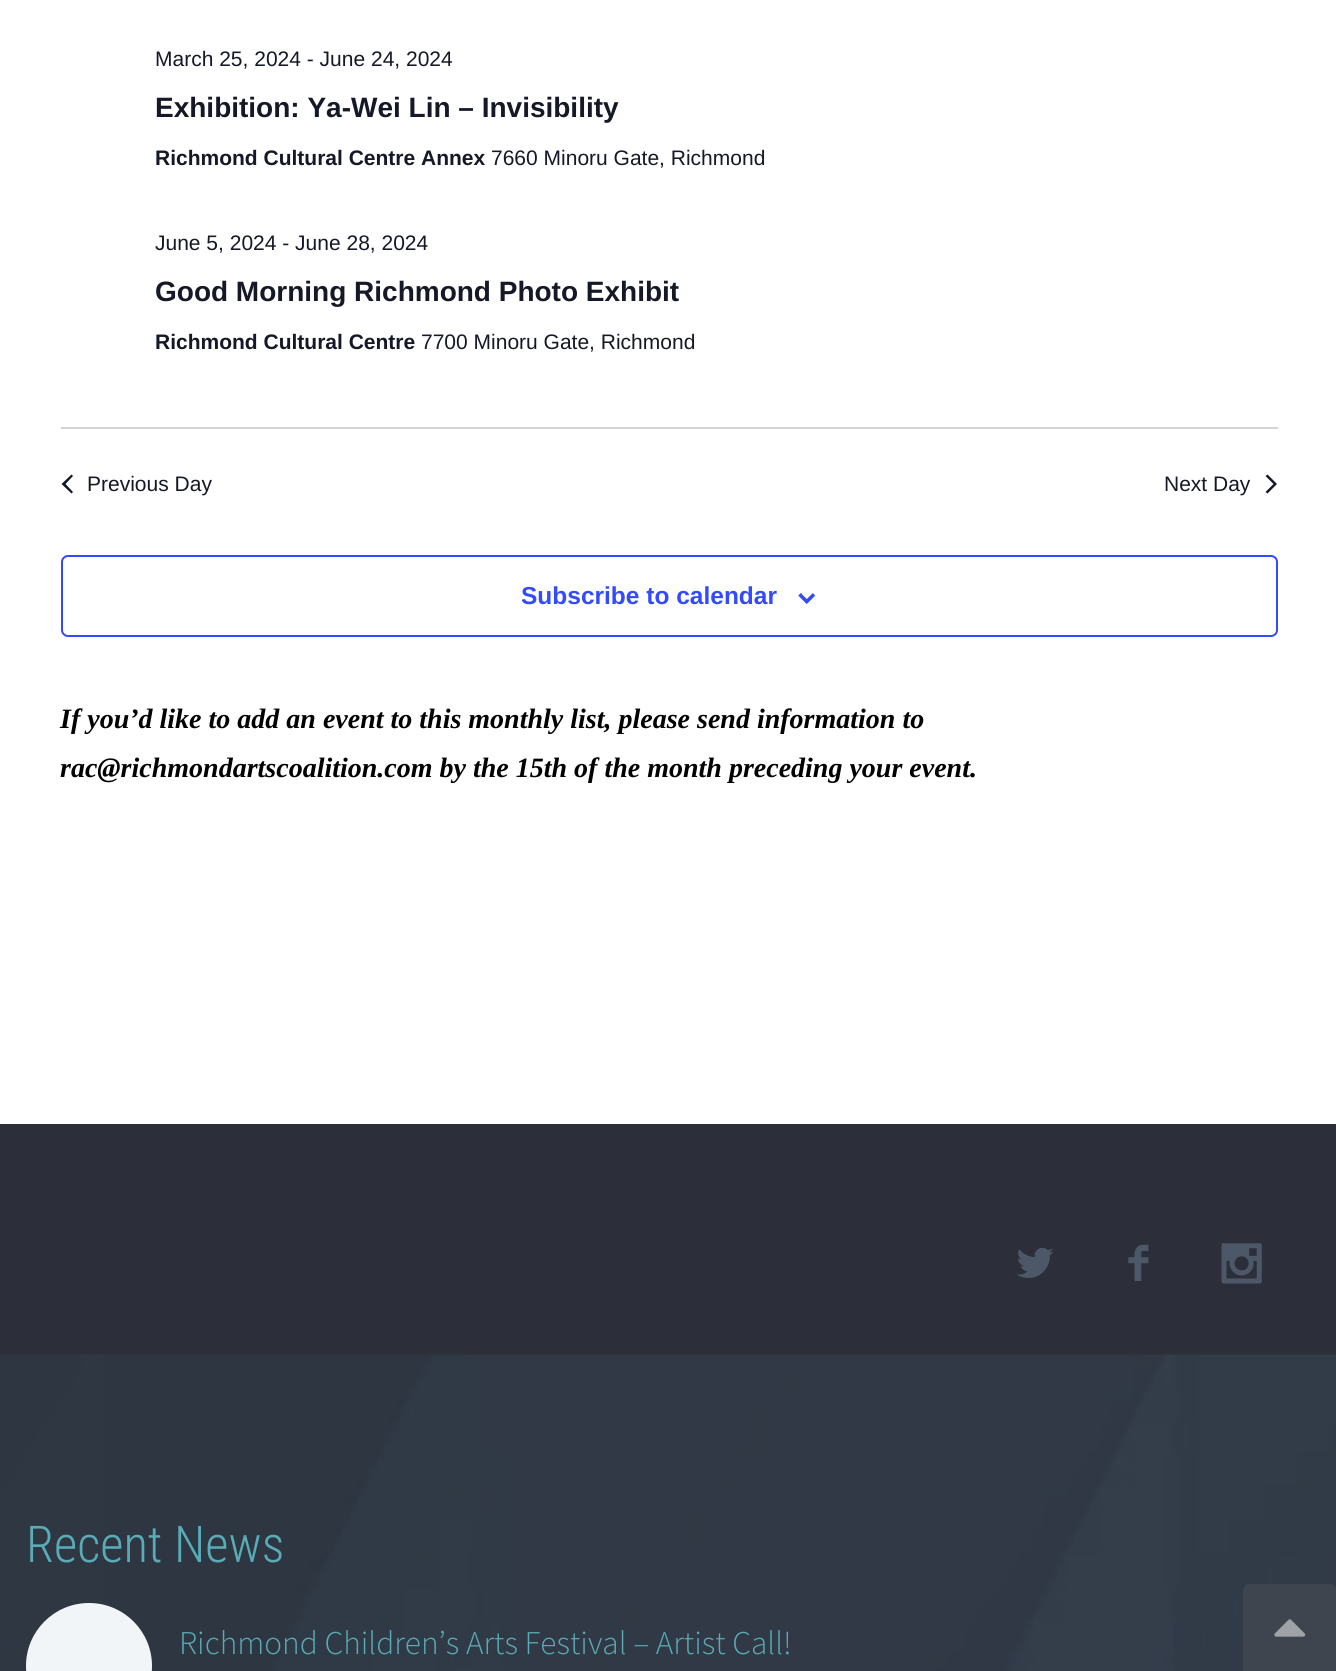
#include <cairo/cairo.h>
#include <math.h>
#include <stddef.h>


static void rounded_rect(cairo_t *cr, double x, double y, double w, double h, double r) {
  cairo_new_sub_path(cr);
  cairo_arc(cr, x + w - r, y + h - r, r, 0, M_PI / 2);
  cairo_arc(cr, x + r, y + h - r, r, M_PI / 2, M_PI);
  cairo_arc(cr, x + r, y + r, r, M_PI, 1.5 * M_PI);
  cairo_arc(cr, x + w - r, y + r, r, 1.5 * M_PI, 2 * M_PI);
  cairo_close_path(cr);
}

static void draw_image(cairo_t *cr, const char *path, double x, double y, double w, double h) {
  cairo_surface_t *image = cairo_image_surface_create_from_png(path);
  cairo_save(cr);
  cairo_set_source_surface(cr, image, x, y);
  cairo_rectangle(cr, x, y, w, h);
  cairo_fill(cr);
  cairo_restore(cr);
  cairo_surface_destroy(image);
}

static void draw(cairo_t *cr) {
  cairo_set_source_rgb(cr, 44 / 255.0, 46 / 255.0, 58 / 255.0);
  cairo_paint(cr);
  cairo_set_source_rgb(cr, 1, 1, 1);
  cairo_rectangle(cr, 0, 0, 1336, 1124);
  cairo_fill(cr);
  cairo_set_source_rgb(cr, 213 / 255.0, 213 / 255.0, 213 / 255.0);
  cairo_rectangle(cr, 61, 427, 1217, 2);
  cairo_fill(cr);
  cairo_set_source_rgb(cr, 20 / 255.0, 24 / 255.0, 39 / 255.0);
  cairo_new_path(cr);
  cairo_move_to(cr, 73, 492);
  cairo_line_to(cr, 71.5, 493.5);
  cairo_line_to(cr, 61.5, 484);
  cairo_line_to(cr, 71.5, 474.5);
  cairo_line_to(cr, 73, 476);
  cairo_line_to(cr, 65.5, 484);
  cairo_close_path(cr);
  cairo_fill(cr);
  cairo_new_path(cr);
  cairo_move_to(cr, 1265.5, 476);
  cairo_line_to(cr, 1267.5, 474.5);
  cairo_line_to(cr, 1277, 484);
  cairo_line_to(cr, 1267.5, 493.5);
  cairo_line_to(cr, 1265.5, 492);
  cairo_line_to(cr, 1273.5, 484);
  cairo_close_path(cr);
  cairo_fill(cr);
  rounded_rect(cr, 62, 556, 1215, 80, 6);
  cairo_set_source_rgb(cr, 51 / 255.0, 74 / 255.0, 1);
  cairo_stroke(cr);
  draw_image(cr, "images/1.png", 798, 593, 18, 11);
  draw_image(cr, "images/2.png", 1017, 1247, 37, 31);
  draw_image(cr, "images/3.png", 1128, 1244, 21, 37);
  draw_image(cr, "images/4.png", 1221, 1243, 41, 41);
  draw_image(cr, "images/5.png", 0, 1354, 1336, 317);
  cairo_set_source_rgb(cr, 241 / 255.0, 245 / 255.0, 248 / 255.0);
  cairo_arc(cr, 89, 1666, 63, 0, 2 * M_PI);
  cairo_fill(cr);
  cairo_set_source_rgb(cr, 62 / 255.0, 69 / 255.0, 79 / 255.0);
  cairo_new_path(cr);
  cairo_move_to(cr, 1250, 1584);
  cairo_line_to(cr, 1330, 1584);
  cairo_curve_to(cr, 1334, 1584, 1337, 1587, 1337, 1591);
  cairo_line_to(cr, 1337, 1671);
  cairo_line_to(cr, 1243, 1671);
  cairo_line_to(cr, 1243, 1591);
  cairo_curve_to(cr, 1243, 1587, 1246, 1584, 1250, 1584);
  cairo_close_path(cr);
  cairo_fill(cr);
  draw_image(cr, "images/6.png", 1274, 1619, 32, 18);
  cairo_select_font_face(cr, "Liberation Sans", CAIRO_FONT_SLANT_NORMAL, CAIRO_FONT_WEIGHT_NORMAL);
  cairo_set_font_size(cr, 21);
  cairo_set_source_rgb(cr, 20 / 255.0, 24 / 255.0, 39 / 255.0);
  cairo_move_to(cr, 155, 66);
  cairo_show_text(cr, "March 25, 2024 - June 24, 2024");
  cairo_select_font_face(cr, "Liberation Sans", CAIRO_FONT_SLANT_NORMAL, CAIRO_FONT_WEIGHT_BOLD);
  cairo_set_font_size(cr, 28);
  cairo_move_to(cr, 155, 117);
  cairo_show_text(cr, "Exhibition: Ya-Wei Lin – Invisibility");
  cairo_set_font_size(cr, 21);
  cairo_move_to(cr, 155, 165);
  cairo_show_text(cr, "Richmond Cultural Centre Annex");
  cairo_select_font_face(cr, "Liberation Sans", CAIRO_FONT_SLANT_NORMAL, CAIRO_FONT_WEIGHT_NORMAL);
  cairo_move_to(cr, 491, 165);
  cairo_show_text(cr, "7660 Minoru Gate, Richmond");
  cairo_move_to(cr, 155, 250);
  cairo_show_text(cr, "June 5, 2024 - June 28, 2024");
  cairo_select_font_face(cr, "Liberation Sans", CAIRO_FONT_SLANT_NORMAL, CAIRO_FONT_WEIGHT_BOLD);
  cairo_set_font_size(cr, 28);
  cairo_move_to(cr, 155, 301);
  cairo_show_text(cr, "Good Morning Richmond Photo Exhibit");
  cairo_set_font_size(cr, 21);
  cairo_move_to(cr, 155, 349);
  cairo_show_text(cr, "Richmond Cultural Centre");
  cairo_select_font_face(cr, "Liberation Sans", CAIRO_FONT_SLANT_NORMAL, CAIRO_FONT_WEIGHT_NORMAL);
  cairo_move_to(cr, 421, 349);
  cairo_show_text(cr, "7700 Minoru Gate, Richmond");
  cairo_move_to(cr, 87, 491);
  cairo_show_text(cr, "Previous Day");
  cairo_move_to(cr, 1164, 491);
  cairo_show_text(cr, "Next Day");
  cairo_select_font_face(cr, "Liberation Sans", CAIRO_FONT_SLANT_NORMAL, CAIRO_FONT_WEIGHT_BOLD);
  cairo_set_font_size(cr, 24.5);
  cairo_set_source_rgb(cr, 51 / 255.0, 74 / 255.0, 1);
  cairo_move_to(cr, 521, 604);
  cairo_show_text(cr, "Subscribe to calendar");
  cairo_select_font_face(cr, "Liberation Serif", CAIRO_FONT_SLANT_ITALIC, CAIRO_FONT_WEIGHT_BOLD);
  cairo_set_font_size(cr, 28);
  cairo_set_source_rgb(cr, 0, 0, 0);
  cairo_move_to(cr, 60, 728);
  cairo_show_text(cr, "If you’d like to add an event to this monthly list, please send information to");
  cairo_move_to(cr, 60, 777);
  cairo_show_text(cr, "rac@richmondartscoalition.com by the 15th of the month preceding your event.");
  cairo_select_font_face(cr, "Roboto Condensed Light", CAIRO_FONT_SLANT_NORMAL, CAIRO_FONT_WEIGHT_NORMAL);
  cairo_set_font_size(cr, 50.75);
  cairo_set_source_rgb(cr, 88 / 255.0, 171 / 255.0, 183 / 255.0);
  cairo_move_to(cr, 26, 1562);
  cairo_show_text(cr, "Recent News");
  cairo_select_font_face(cr, "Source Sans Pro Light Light", CAIRO_FONT_SLANT_NORMAL, CAIRO_FONT_WEIGHT_NORMAL);
  cairo_set_font_size(cr, 33.25);
  cairo_move_to(cr, 179, 1654);
  cairo_show_text(cr, "Richmond Children’s Arts Festival – Artist Call!");
}

int main(void) {
  cairo_surface_t *surface = cairo_image_surface_create(CAIRO_FORMAT_RGB24, 1336, 1671);
  cairo_t *cr = cairo_create(surface);
  cairo_font_options_t *options = cairo_font_options_create();
  cairo_font_options_set_hint_metrics(options, CAIRO_HINT_METRICS_OFF);
  cairo_font_options_set_hint_style(options, CAIRO_HINT_STYLE_NONE);
  cairo_set_font_options(cr, options);
  cairo_set_miter_limit(cr, 4);
  draw(cr);
  cairo_surface_write_to_png(surface, "out.png");
  cairo_font_options_destroy(options);
  cairo_destroy(cr);
  cairo_surface_destroy(surface);
  return 0;
}
